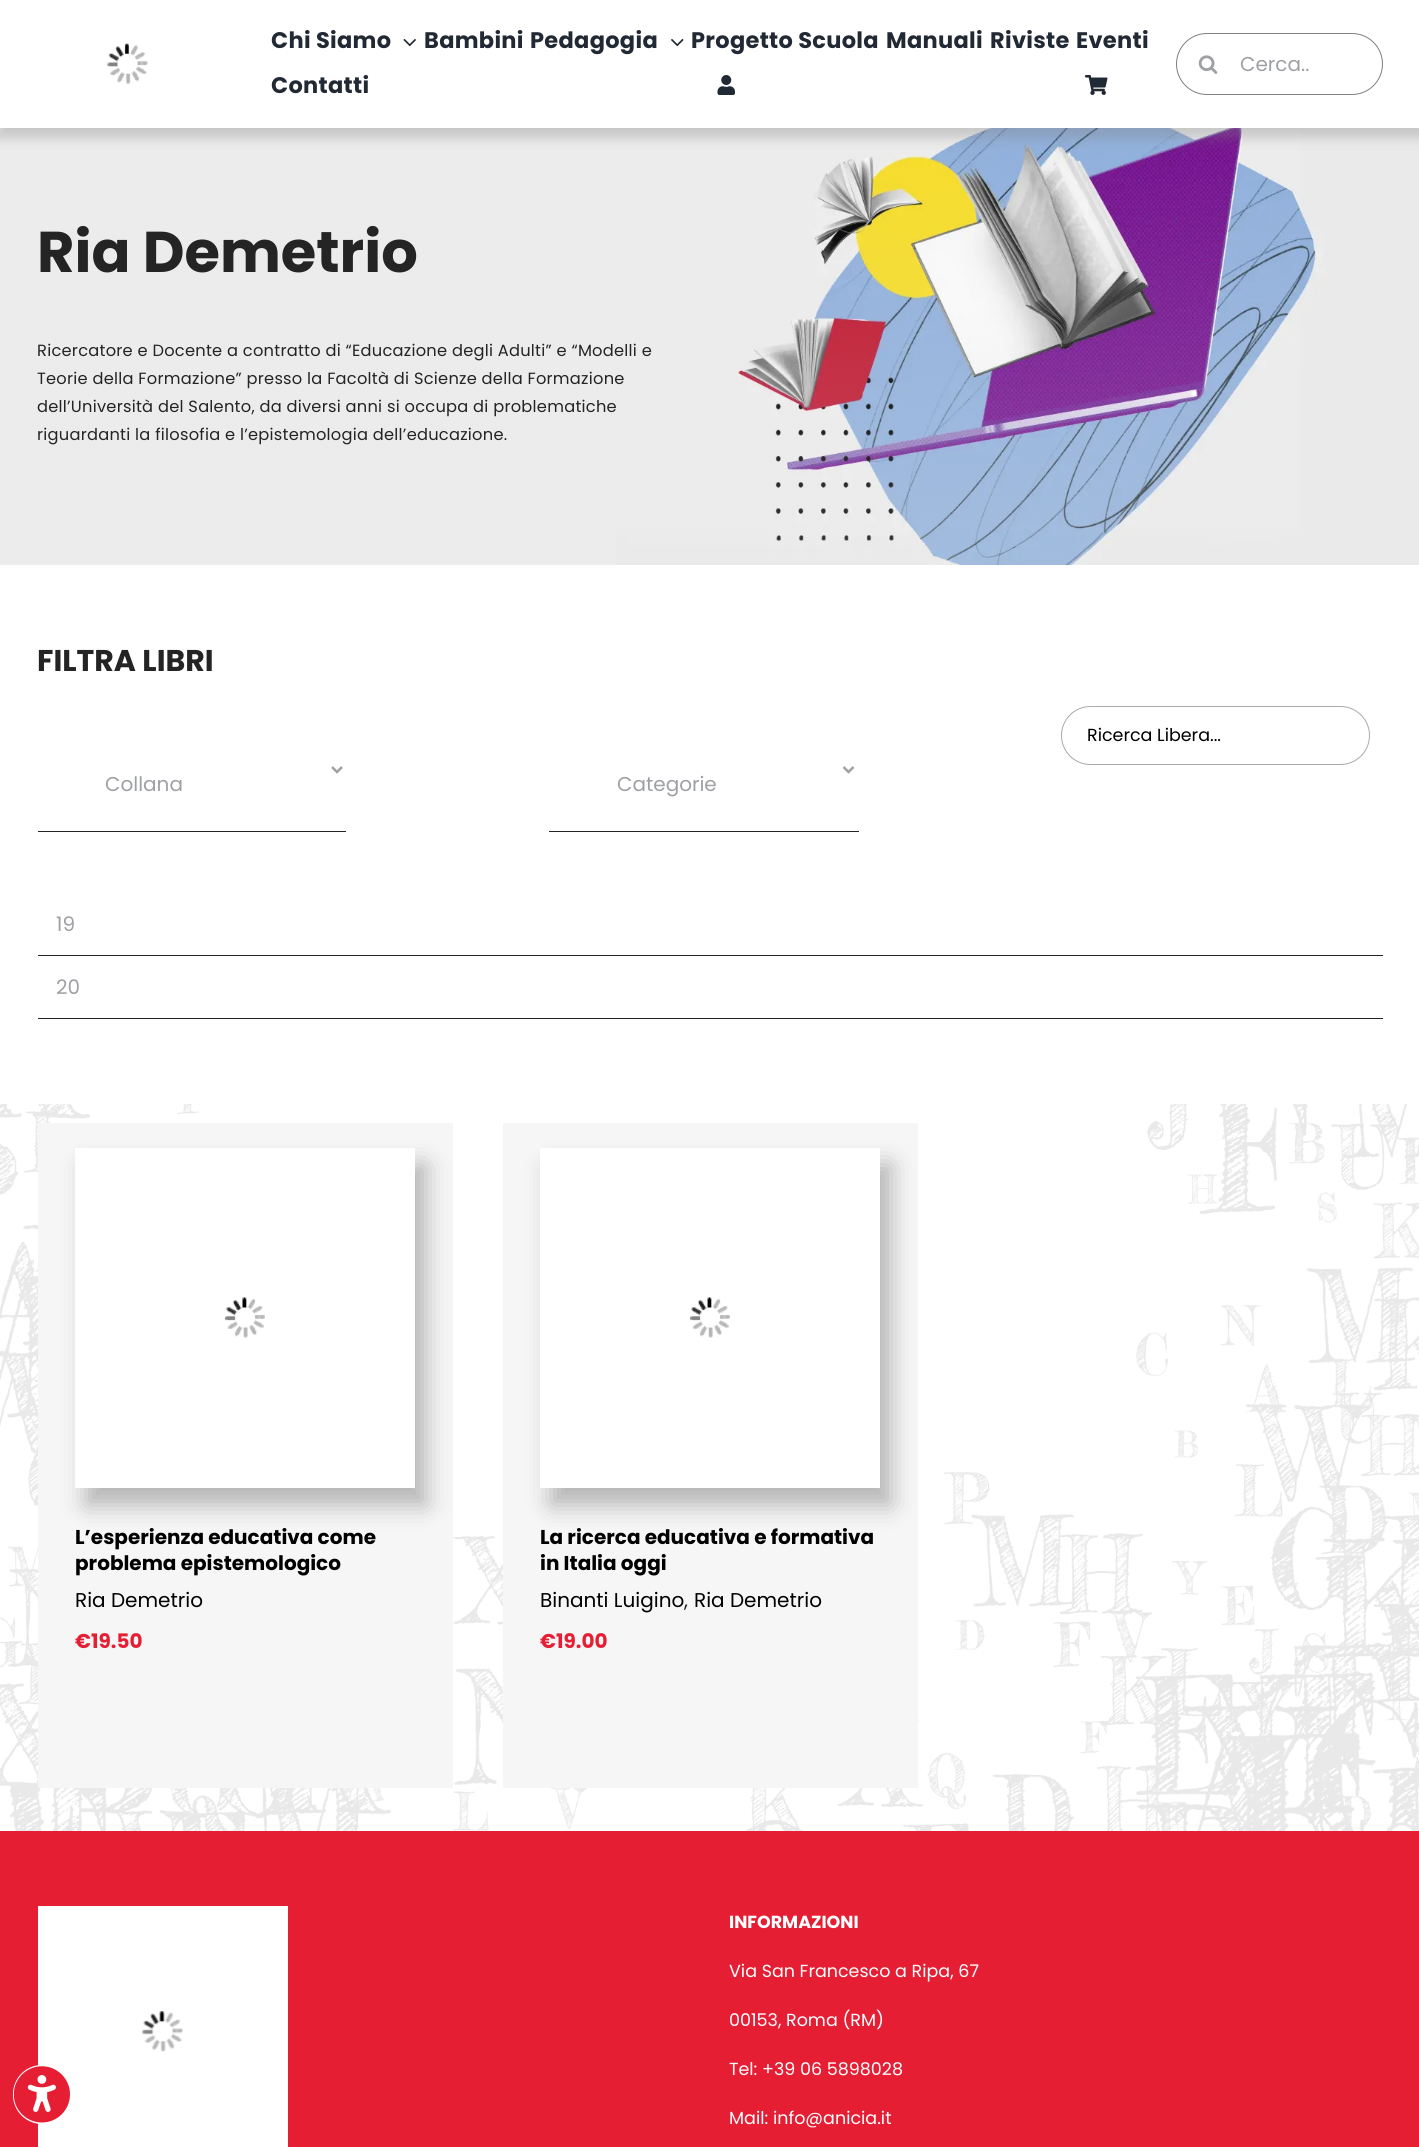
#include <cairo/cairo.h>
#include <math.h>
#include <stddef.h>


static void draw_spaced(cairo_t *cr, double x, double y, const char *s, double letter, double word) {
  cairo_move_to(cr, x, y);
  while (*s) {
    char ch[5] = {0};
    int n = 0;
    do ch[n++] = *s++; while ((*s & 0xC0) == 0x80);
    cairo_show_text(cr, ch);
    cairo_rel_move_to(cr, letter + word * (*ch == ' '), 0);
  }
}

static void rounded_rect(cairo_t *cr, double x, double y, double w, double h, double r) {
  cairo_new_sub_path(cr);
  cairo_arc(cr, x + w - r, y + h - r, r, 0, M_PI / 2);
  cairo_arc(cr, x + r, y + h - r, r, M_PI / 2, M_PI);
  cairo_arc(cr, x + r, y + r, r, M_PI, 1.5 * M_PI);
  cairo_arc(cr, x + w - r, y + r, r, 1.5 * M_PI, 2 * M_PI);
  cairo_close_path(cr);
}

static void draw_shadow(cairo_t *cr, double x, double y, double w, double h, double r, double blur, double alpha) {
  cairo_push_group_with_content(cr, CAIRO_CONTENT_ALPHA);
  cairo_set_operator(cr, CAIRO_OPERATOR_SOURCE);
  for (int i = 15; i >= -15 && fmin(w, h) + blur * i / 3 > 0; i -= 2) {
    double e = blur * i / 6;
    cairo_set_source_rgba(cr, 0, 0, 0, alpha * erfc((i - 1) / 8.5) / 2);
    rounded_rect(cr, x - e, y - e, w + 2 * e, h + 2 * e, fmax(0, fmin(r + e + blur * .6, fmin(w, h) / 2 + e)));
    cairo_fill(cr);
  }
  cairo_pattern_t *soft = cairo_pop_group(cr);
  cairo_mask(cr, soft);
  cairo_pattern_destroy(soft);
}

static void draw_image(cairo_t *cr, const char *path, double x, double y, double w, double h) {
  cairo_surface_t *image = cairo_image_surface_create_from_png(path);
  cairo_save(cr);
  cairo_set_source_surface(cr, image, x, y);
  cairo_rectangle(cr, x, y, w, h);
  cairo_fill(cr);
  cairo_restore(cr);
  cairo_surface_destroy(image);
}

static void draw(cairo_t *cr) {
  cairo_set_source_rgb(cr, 1, 1, 1);
  cairo_paint(cr);
  draw_image(cr, "images/7.png", 0, 128, 1419, 437);
  cairo_set_source_rgb(cr, 128 / 255.0, 128 / 255.0, 128 / 255.0);
  draw_shadow(cr, -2, 5, 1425, 133, 0, 6, 0.35);
  cairo_set_source_rgb(cr, 1, 1, 1);
  cairo_rectangle(cr, 0, 0, 1419, 128);
  cairo_fill(cr);
  draw_image(cr, "images/1.png", 107, 43, 41, 41);
  draw_image(cr, "images/2.png", 403, 39, 13, 8);
  draw_image(cr, "images/3.png", 671, 39, 13, 8);
  draw_image(cr, "images/4.png", 717, 75, 18, 20);
  draw_image(cr, "images/5.png", 1085, 75, 23, 20);
  rounded_rect(cr, 1176.5, 33.5, 206, 61, 30.5);
  cairo_set_source_rgb(cr, 128 / 255.0, 128 / 255.0, 128 / 255.0);
  cairo_set_line_width(cr, 1);
  cairo_stroke(cr);
  draw_image(cr, "images/6.png", 1198, 55, 20, 19);
  rounded_rect(cr, 1061.5, 706.5, 308, 58, 29);
  cairo_set_source_rgb(cr, 170 / 255.0, 170 / 255.0, 170 / 255.0);
  cairo_stroke(cr);
  cairo_set_source_rgb(cr, 36 / 255.0, 36 / 255.0, 36 / 255.0);
  cairo_rectangle(cr, 38, 831, 308, 1);
  cairo_fill(cr);
  cairo_new_path(cr);
  cairo_move_to(cr, 332, 767);
  cairo_line_to(cr, 337, 772);
  cairo_line_to(cr, 342, 767);
  cairo_set_source_rgb(cr, 158 / 255.0, 160 / 255.0, 164 / 255.0);
  cairo_set_line_width(cr, 2.5);
  cairo_stroke(cr);
  cairo_set_source_rgb(cr, 36 / 255.0, 36 / 255.0, 36 / 255.0);
  cairo_rectangle(cr, 549, 831, 310, 1);
  cairo_fill(cr);
  cairo_new_path(cr);
  cairo_move_to(cr, 843.5, 767);
  cairo_line_to(cr, 848.5, 772);
  cairo_line_to(cr, 853.5, 767);
  cairo_set_source_rgb(cr, 158 / 255.0, 160 / 255.0, 164 / 255.0);
  cairo_stroke(cr);
  cairo_set_source_rgb(cr, 36 / 255.0, 36 / 255.0, 36 / 255.0);
  cairo_rectangle(cr, 38, 955, 1345, 1);
  cairo_fill(cr);
  cairo_rectangle(cr, 38, 1018, 1345, 1);
  cairo_fill(cr);
  draw_image(cr, "images/8.png", 0, 1104, 1419, 727);
  cairo_set_source_rgb(cr, 246 / 255.0, 246 / 255.0, 246 / 255.0);
  cairo_rectangle(cr, 38, 1123, 415, 665);
  cairo_fill(cr);
  cairo_set_source_rgb(cr, 76 / 255.0, 76 / 255.0, 76 / 255.0);
  draw_shadow(cr, 86, 1165, 340, 340, 0, 12, 0.39);
  cairo_set_source_rgb(cr, 1, 1, 1);
  cairo_rectangle(cr, 75, 1148, 340, 340);
  cairo_fill(cr);
  draw_image(cr, "images/9.png", 225, 1297, 40, 41);
  cairo_set_source_rgb(cr, 246 / 255.0, 246 / 255.0, 246 / 255.0);
  cairo_rectangle(cr, 503, 1123, 415, 665);
  cairo_fill(cr);
  cairo_set_source_rgb(cr, 76 / 255.0, 76 / 255.0, 76 / 255.0);
  draw_shadow(cr, 551, 1165, 340, 340, 0, 12, 0.39);
  cairo_set_source_rgb(cr, 1, 1, 1);
  cairo_rectangle(cr, 540, 1148, 340, 340);
  cairo_fill(cr);
  draw_image(cr, "images/10.png", 690, 1297, 40, 41);
  cairo_set_source_rgb(cr, 229 / 255.0, 30 / 255.0, 52 / 255.0);
  cairo_rectangle(cr, 0, 1831, 1419, 316);
  cairo_fill(cr);
  cairo_set_source_rgb(cr, 1, 1, 1);
  cairo_rectangle(cr, 38, 1906, 250, 241);
  cairo_fill(cr);
  draw_image(cr, "images/11.png", 142, 2011, 41, 41);
  rounded_rect(cr, 13.5, 2065.5, 57, 58, 28.5);
  cairo_fill_preserve(cr);
  cairo_set_line_width(cr, 1);
  cairo_stroke(cr);
  draw_image(cr, "images/12.png", 14, 2066, 56, 57);
  cairo_select_font_face(cr, "Poppins", CAIRO_FONT_SLANT_NORMAL, CAIRO_FONT_WEIGHT_BOLD);
  cairo_set_font_size(cr, 22.5);
  cairo_set_source_rgb(cr, 33 / 255.0, 41 / 255.0, 52 / 255.0);
  draw_spaced(cr, 271, 48, "Chi Siamo", 0.3, 0);
  draw_spaced(cr, 424, 48, "Bambini", 0.3, 0);
  draw_spaced(cr, 530, 48, "Pedagogia", 0.3, 0);
  draw_spaced(cr, 691, 48, "Progetto Scuola", 0.3, 0);
  draw_spaced(cr, 886, 48, "Manuali", 0.3, 0);
  draw_spaced(cr, 990, 48, "Riviste", 0.3, 0);
  draw_spaced(cr, 1076, 48, "Eventi", 0.3, 0);
  draw_spaced(cr, 271, 93, "Contatti", 0.3, 0);
  cairo_select_font_face(cr, "Poppins", CAIRO_FONT_SLANT_NORMAL, CAIRO_FONT_WEIGHT_NORMAL);
  cairo_set_font_size(cr, 20);
  cairo_set_source_rgb(cr, 158 / 255.0, 160 / 255.0, 164 / 255.0);
  cairo_move_to(cr, 1240, 71);
  cairo_show_text(cr, "Cerca..");
  cairo_select_font_face(cr, "Poppins", CAIRO_FONT_SLANT_NORMAL, CAIRO_FONT_WEIGHT_BOLD);
  cairo_set_font_size(cr, 57.5);
  cairo_set_source_rgb(cr, 36 / 255.0, 36 / 255.0, 36 / 255.0);
  cairo_move_to(cr, 37, 272);
  cairo_show_text(cr, "Ria Demetrio");
  cairo_select_font_face(cr, "Poppins", CAIRO_FONT_SLANT_NORMAL, CAIRO_FONT_WEIGHT_NORMAL);
  cairo_set_font_size(cr, 16.25);
  draw_spaced(cr, 37, 356, "Ricercatore e Docente a contratto di “Educazione degli Adulti” e “Modelli e", 0.25, 0);
  draw_spaced(cr, 37, 384, "Teorie della Formazione” presso la Facoltà di Scienze della Formazione", 0.25, 0);
  draw_spaced(cr, 37, 412, "dell’Università del Salento, da diversi anni si occupa di problematiche", 0.25, 0);
  draw_spaced(cr, 37, 440, "riguardanti la filosofia e l’epistemologia dell’educazione.", 0.25, 0);
  cairo_select_font_face(cr, "Poppins", CAIRO_FONT_SLANT_NORMAL, CAIRO_FONT_WEIGHT_BOLD);
  cairo_set_font_size(cr, 30);
  cairo_move_to(cr, 37, 671);
  cairo_show_text(cr, "FILTRA LIBRI");
  cairo_select_font_face(cr, "Poppins", CAIRO_FONT_SLANT_NORMAL, CAIRO_FONT_WEIGHT_NORMAL);
  cairo_set_font_size(cr, 17.5);
  cairo_set_source_rgb(cr, 0, 0, 0);
  cairo_move_to(cr, 1087, 741);
  cairo_show_text(cr, "Ricerca Libera...");
  cairo_set_font_size(cr, 20);
  cairo_set_source_rgb(cr, 158 / 255.0, 160 / 255.0, 164 / 255.0);
  cairo_move_to(cr, 105, 791);
  cairo_show_text(cr, "Collana");
  cairo_move_to(cr, 617, 791);
  cairo_show_text(cr, "Categorie");
  cairo_move_to(cr, 56, 931);
  cairo_show_text(cr, "19");
  cairo_move_to(cr, 56, 994);
  cairo_show_text(cr, "20");
  cairo_select_font_face(cr, "Poppins", CAIRO_FONT_SLANT_NORMAL, CAIRO_FONT_WEIGHT_BOLD);
  cairo_set_source_rgb(cr, 0, 0, 0);
  cairo_move_to(cr, 75, 1544);
  cairo_show_text(cr, "L’esperienza educativa come");
  cairo_move_to(cr, 75, 1570);
  cairo_show_text(cr, "problema epistemologico");
  cairo_select_font_face(cr, "Poppins", CAIRO_FONT_SLANT_NORMAL, CAIRO_FONT_WEIGHT_NORMAL);
  cairo_move_to(cr, 75, 1607);
  cairo_show_text(cr, "Ria Demetrio");
  cairo_select_font_face(cr, "Poppins", CAIRO_FONT_SLANT_NORMAL, CAIRO_FONT_WEIGHT_BOLD);
  cairo_set_source_rgb(cr, 229 / 255.0, 30 / 255.0, 52 / 255.0);
  cairo_move_to(cr, 75, 1648);
  cairo_show_text(cr, "€19.50");
  cairo_set_source_rgb(cr, 0, 0, 0);
  cairo_move_to(cr, 540, 1544);
  cairo_show_text(cr, "La ricerca educativa e formativa");
  cairo_move_to(cr, 540, 1570);
  cairo_show_text(cr, "in Italia oggi");
  cairo_select_font_face(cr, "Poppins", CAIRO_FONT_SLANT_NORMAL, CAIRO_FONT_WEIGHT_NORMAL);
  cairo_move_to(cr, 540, 1607);
  cairo_show_text(cr, "Binanti Luigino");
  cairo_set_source_rgb(cr, 36 / 255.0, 36 / 255.0, 36 / 255.0);
  cairo_move_to(cr, 684, 1607);
  cairo_show_text(cr, ",");
  cairo_set_source_rgb(cr, 0, 0, 0);
  cairo_move_to(cr, 694, 1607);
  cairo_show_text(cr, "Ria Demetrio");
  cairo_select_font_face(cr, "Poppins", CAIRO_FONT_SLANT_NORMAL, CAIRO_FONT_WEIGHT_BOLD);
  cairo_set_source_rgb(cr, 229 / 255.0, 30 / 255.0, 52 / 255.0);
  cairo_move_to(cr, 540, 1648);
  cairo_show_text(cr, "€19.00");
  cairo_set_font_size(cr, 17.5);
  cairo_set_source_rgb(cr, 1, 1, 1);
  cairo_move_to(cr, 729, 1928);
  cairo_show_text(cr, "INFORMAZIONI");
  cairo_select_font_face(cr, "Poppins", CAIRO_FONT_SLANT_NORMAL, CAIRO_FONT_WEIGHT_NORMAL);
  cairo_move_to(cr, 729, 1977);
  cairo_show_text(cr, "Via San Francesco a Ripa, 67");
  cairo_move_to(cr, 729, 2026);
  cairo_show_text(cr, "00153, Roma (RM)");
  cairo_move_to(cr, 729, 2075);
  cairo_show_text(cr, "Tel: +39 06 5898028");
  cairo_move_to(cr, 729, 2124);
  cairo_show_text(cr, "Mail: info@anicia.it");
}

int main(void) {
  cairo_surface_t *surface = cairo_image_surface_create(CAIRO_FORMAT_RGB24, 1419, 2147);
  cairo_t *cr = cairo_create(surface);
  cairo_font_options_t *options = cairo_font_options_create();
  cairo_font_options_set_hint_metrics(options, CAIRO_HINT_METRICS_OFF);
  cairo_font_options_set_hint_style(options, CAIRO_HINT_STYLE_NONE);
  cairo_set_font_options(cr, options);
  cairo_set_miter_limit(cr, 4);
  draw(cr);
  cairo_surface_write_to_png(surface, "out.png");
  cairo_font_options_destroy(options);
  cairo_destroy(cr);
  cairo_surface_destroy(surface);
  return 0;
}
